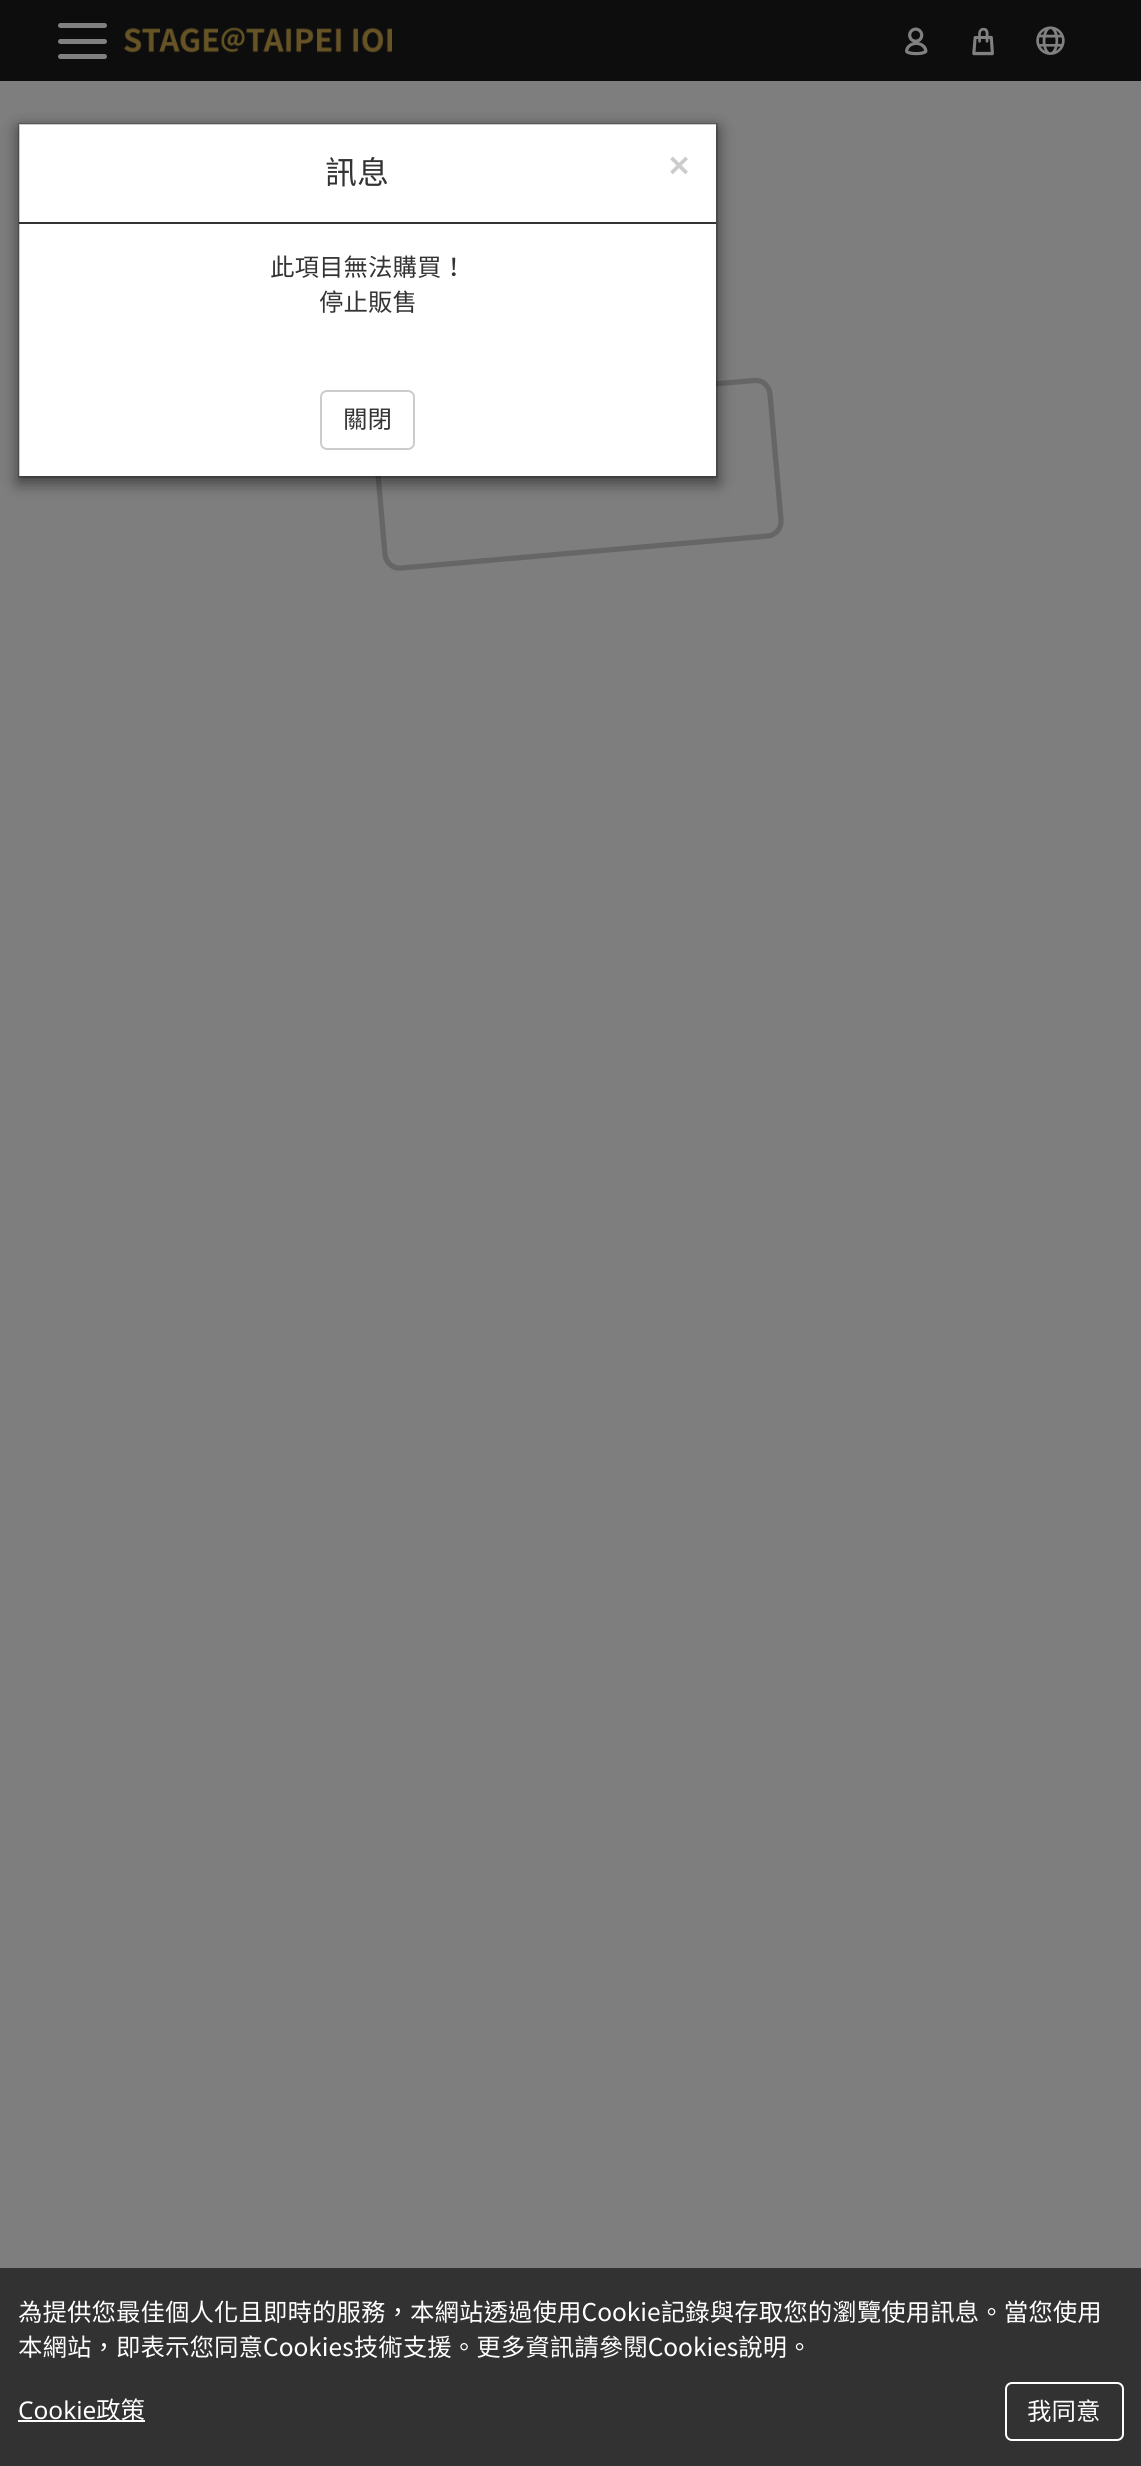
#include <cairo/cairo.h>
#include <math.h>
#include <stddef.h>


static void rounded_rect(cairo_t *cr, double x, double y, double w, double h, double r) {
  cairo_new_sub_path(cr);
  cairo_arc(cr, x + w - r, y + h - r, r, 0, M_PI / 2);
  cairo_arc(cr, x + r, y + h - r, r, M_PI / 2, M_PI);
  cairo_arc(cr, x + r, y + r, r, M_PI, 1.5 * M_PI);
  cairo_arc(cr, x + w - r, y + r, r, 1.5 * M_PI, 2 * M_PI);
  cairo_close_path(cr);
}

static void draw_shadow(cairo_t *cr, double x, double y, double w, double h, double r, double blur, double alpha) {
  cairo_push_group_with_content(cr, CAIRO_CONTENT_ALPHA);
  cairo_set_operator(cr, CAIRO_OPERATOR_SOURCE);
  for (int i = 15; i >= -15 && fmin(w, h) + blur * i / 3 > 0; i -= 2) {
    double e = blur * i / 6;
    cairo_set_source_rgba(cr, 0, 0, 0, alpha * erfc((i - 1) / 8.5) / 2);
    rounded_rect(cr, x - e, y - e, w + 2 * e, h + 2 * e, fmax(0, fmin(r + e + blur * .6, fmin(w, h) / 2 + e)));
    cairo_fill(cr);
  }
  cairo_pattern_t *soft = cairo_pop_group(cr);
  cairo_mask(cr, soft);
  cairo_pattern_destroy(soft);
}

static void draw_image(cairo_t *cr, const char *path, double x, double y, double w, double h) {
  cairo_surface_t *image = cairo_image_surface_create_from_png(path);
  cairo_save(cr);
  cairo_set_source_surface(cr, image, x, y);
  cairo_rectangle(cr, x, y, w, h);
  cairo_fill(cr);
  cairo_restore(cr);
  cairo_surface_destroy(image);
}

static void draw(cairo_t *cr) {
  cairo_set_source_rgb(cr, 126 / 255.0, 126 / 255.0, 126 / 255.0);
  cairo_paint(cr);
  cairo_set_source_rgb(cr, 13 / 255.0, 13 / 255.0, 13 / 255.0);
  cairo_rectangle(cr, 0, 0, 1141, 81);
  cairo_fill(cr);
  cairo_set_source_rgb(cr, 128 / 255.0, 128 / 255.0, 128 / 255.0);
  rounded_rect(cr, 58, 23, 49, 5, 2.5);
  cairo_fill(cr);
  rounded_rect(cr, 58, 39, 49, 5, 2.5);
  cairo_fill(cr);
  rounded_rect(cr, 58, 54, 49, 5, 2.5);
  cairo_fill(cr);
  draw_image(cr, "images/1.png", 124, 27, 268, 26);
  draw_image(cr, "images/2.png", 905, 27, 23, 29);
  draw_image(cr, "images/3.png", 972, 27, 22, 29);
  draw_image(cr, "images/4.png", 1036, 26, 29, 29);
  cairo_new_path(cr);
  cairo_move_to(cr, 387.5, 412.5);
  cairo_line_to(cr, 754, 380.5);
  cairo_curve_to(cr, 762, 379.5, 769, 385.5, 770, 394);
  cairo_line_to(cr, 781, 520);
  cairo_curve_to(cr, 781.5, 528.5, 775.5, 535.5, 767.5, 536);
  cairo_line_to(cr, 401.5, 568);
  cairo_curve_to(cr, 393, 569, 386, 563, 385, 554.5);
  cairo_line_to(cr, 374, 428.5);
  cairo_curve_to(cr, 373.5, 420.5, 379.5, 413, 387.5, 412.5);
  cairo_close_path(cr);
  cairo_set_source_rgb(cr, 102 / 255.0, 102 / 255.0, 102 / 255.0);
  cairo_set_line_width(cr, 5.3);
  cairo_stroke(cr);
  cairo_set_source_rgb(cr, 0, 0, 0);
  draw_shadow(cr, 18, 128, 700, 355, 0, 8, 0.5);
  cairo_set_source_rgb(cr, 1, 1, 1);
  cairo_rectangle(cr, 19, 124, 697, 352);
  cairo_fill(cr);
  cairo_rectangle(cr, 19, 124, 698, 353);
  cairo_set_source_rgba(cr, 0, 0, 0, 0.2);
  cairo_set_line_width(cr, 2);
  cairo_stroke(cr);
  cairo_set_source_rgb(cr, 51 / 255.0, 51 / 255.0, 51 / 255.0);
  cairo_rectangle(cr, 19, 222, 697, 2);
  cairo_fill(cr);
  rounded_rect(cr, 321, 391, 93, 58, 6);
  cairo_set_source_rgb(cr, 204 / 255.0, 204 / 255.0, 204 / 255.0);
  cairo_stroke(cr);
  cairo_set_source_rgb(cr, 50 / 255.0, 50 / 255.0, 50 / 255.0);
  cairo_rectangle(cr, 0, 2268, 1141, 198);
  cairo_fill(cr);
  cairo_set_source_rgb(cr, 1, 1, 1);
  cairo_rectangle(cr, 18, 2420, 127, 2);
  cairo_fill(cr);
  rounded_rect(cr, 1006, 2383, 117, 57, 6);
  cairo_stroke(cr);
  cairo_select_font_face(cr, "Noto Sans TC", CAIRO_FONT_SLANT_NORMAL, CAIRO_FONT_WEIGHT_NORMAL);
  cairo_set_font_size(cr, 32);
  cairo_set_source_rgb(cr, 51 / 255.0, 51 / 255.0, 51 / 255.0);
  cairo_move_to(cr, 325, 184);
  cairo_show_text(cr, "訊息");
  cairo_select_font_face(cr, "Noto Sans", CAIRO_FONT_SLANT_NORMAL, CAIRO_FONT_WEIGHT_BOLD);
  cairo_set_font_size(cr, 37);
  cairo_set_source_rgb(cr, 204 / 255.0, 204 / 255.0, 204 / 255.0);
  cairo_move_to(cr, 668, 179);
  cairo_show_text(cr, "×");
  cairo_select_font_face(cr, "Noto Sans TC", CAIRO_FONT_SLANT_NORMAL, CAIRO_FONT_WEIGHT_NORMAL);
  cairo_set_font_size(cr, 24.5);
  cairo_set_source_rgb(cr, 51 / 255.0, 51 / 255.0, 51 / 255.0);
  cairo_move_to(cr, 270, 276);
  cairo_show_text(cr, "此項目無法購買！");
  cairo_move_to(cr, 319, 311);
  cairo_show_text(cr, "停止販售");
  cairo_move_to(cr, 343, 428);
  cairo_show_text(cr, "關閉");
  cairo_set_source_rgb(cr, 1, 1, 1);
  cairo_move_to(cr, 18, 2321);
  cairo_show_text(cr, "為提供您最佳個人化且即時的服務，本網站透過使用Cookie記錄與存取您的瀏覽使用訊息。當您使用");
  cairo_move_to(cr, 18, 2356);
  cairo_show_text(cr, "本網站，即表示您同意Cookies技術支援。更多資訊請參閱Cookies說明。");
  cairo_select_font_face(cr, "Noto Sans", CAIRO_FONT_SLANT_NORMAL, CAIRO_FONT_WEIGHT_NORMAL);
  cairo_move_to(cr, 18, 2419);
  cairo_show_text(cr, "Cookie");
  cairo_select_font_face(cr, "Noto Sans TC", CAIRO_FONT_SLANT_NORMAL, CAIRO_FONT_WEIGHT_NORMAL);
  cairo_move_to(cr, 96, 2419);
  cairo_show_text(cr, "政策");
  cairo_move_to(cr, 1027, 2420);
  cairo_show_text(cr, "我同意");
}

int main(void) {
  cairo_surface_t *surface = cairo_image_surface_create(CAIRO_FORMAT_RGB24, 1141, 2466);
  cairo_t *cr = cairo_create(surface);
  cairo_font_options_t *options = cairo_font_options_create();
  cairo_font_options_set_hint_metrics(options, CAIRO_HINT_METRICS_OFF);
  cairo_font_options_set_hint_style(options, CAIRO_HINT_STYLE_NONE);
  cairo_set_font_options(cr, options);
  cairo_set_miter_limit(cr, 4);
  draw(cr);
  cairo_surface_write_to_png(surface, "out.png");
  cairo_font_options_destroy(options);
  cairo_destroy(cr);
  cairo_surface_destroy(surface);
  return 0;
}
